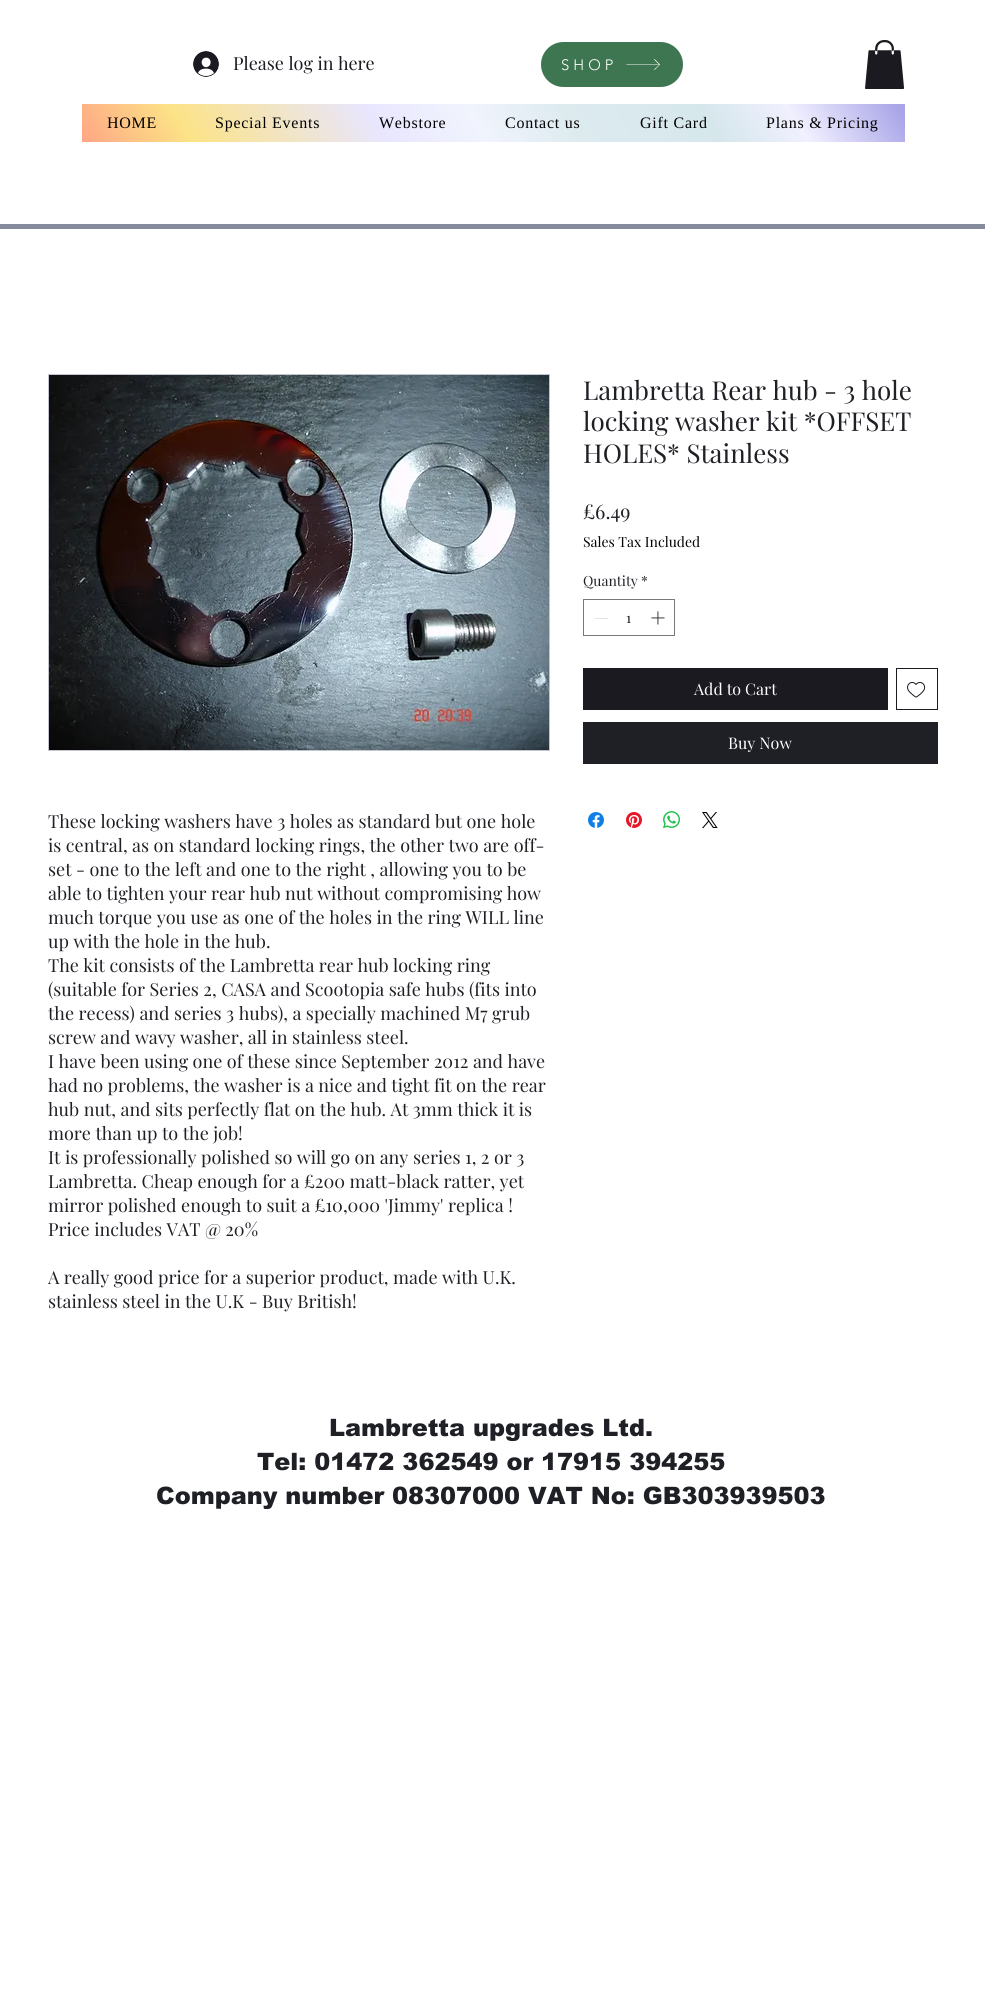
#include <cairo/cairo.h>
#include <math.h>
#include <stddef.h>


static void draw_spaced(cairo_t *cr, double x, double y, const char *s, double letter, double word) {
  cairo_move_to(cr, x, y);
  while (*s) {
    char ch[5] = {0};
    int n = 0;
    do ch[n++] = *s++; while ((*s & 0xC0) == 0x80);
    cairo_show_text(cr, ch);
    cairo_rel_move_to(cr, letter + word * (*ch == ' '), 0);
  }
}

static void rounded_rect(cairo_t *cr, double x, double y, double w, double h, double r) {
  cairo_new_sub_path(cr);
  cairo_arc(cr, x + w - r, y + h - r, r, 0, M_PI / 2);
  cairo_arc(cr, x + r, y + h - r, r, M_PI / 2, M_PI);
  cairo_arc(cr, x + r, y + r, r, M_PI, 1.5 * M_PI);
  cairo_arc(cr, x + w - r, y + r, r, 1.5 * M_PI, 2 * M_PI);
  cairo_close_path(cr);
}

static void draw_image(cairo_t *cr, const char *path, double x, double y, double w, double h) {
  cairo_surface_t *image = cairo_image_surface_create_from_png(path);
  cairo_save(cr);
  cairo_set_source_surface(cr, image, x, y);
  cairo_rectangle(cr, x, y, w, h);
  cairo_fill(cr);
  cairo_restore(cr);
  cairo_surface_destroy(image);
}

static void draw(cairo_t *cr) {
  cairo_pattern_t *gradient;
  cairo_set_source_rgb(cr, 1, 1, 1);
  cairo_paint(cr);
  draw_image(cr, "images/1.png", 193, 51, 26, 26);
  cairo_set_source_rgb(cr, 63 / 255.0, 118 / 255.0, 82 / 255.0);
  rounded_rect(cr, 541, 42, 142, 45, 22.5);
  cairo_fill(cr);
  cairo_set_source_rgb(cr, 1, 1, 1);
  cairo_new_path(cr);
  cairo_move_to(cr, 654.5, 59);
  cairo_line_to(cr, 654, 59.5);
  cairo_line_to(cr, 659, 64.5);
  cairo_line_to(cr, 626.5, 64.5);
  cairo_line_to(cr, 626.5, 65);
  cairo_line_to(cr, 659, 65);
  cairo_line_to(cr, 654, 69.5);
  cairo_line_to(cr, 654.5, 70);
  cairo_line_to(cr, 660, 64.5);
  cairo_close_path(cr);
  cairo_fill(cr);
  draw_image(cr, "images/2.png", 865, 40, 39, 49);
  gradient = cairo_pattern_create_linear(189, 313, 798, -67);
  cairo_pattern_add_color_stop_rgba(gradient, 0, 1, 166 / 255.0, 133 / 255.0, 1);
  cairo_pattern_add_color_stop_rgba(gradient, 0.13, 252 / 255.0, 227 / 255.0, 135 / 255.0, 1);
  cairo_pattern_add_color_stop_rgba(gradient, 0.36, 232 / 255.0, 230 / 255.0, 1, 1);
  cairo_pattern_add_color_stop_rgba(gradient, 0.48, 241 / 255.0, 244 / 255.0, 253 / 255.0, 1);
  cairo_pattern_add_color_stop_rgba(gradient, 0.59, 221 / 255.0, 235 / 255.0, 239 / 255.0, 1);
  cairo_pattern_add_color_stop_rgba(gradient, 0.76, 214 / 255.0, 231 / 255.0, 236 / 255.0, 1);
  cairo_pattern_add_color_stop_rgba(gradient, 0.86, 241 / 255.0, 240 / 255.0, 1, 1);
  cairo_pattern_add_color_stop_rgba(gradient, 0.99, 169 / 255.0, 165 / 255.0, 232 / 255.0, 1);
  cairo_set_source(cr, gradient);
  cairo_pattern_destroy(gradient);
  cairo_rectangle(cr, 82, 104, 823, 38);
  cairo_fill(cr);
  cairo_set_source_rgb(cr, 133 / 255.0, 139 / 255.0, 156 / 255.0);
  cairo_rectangle(cr, 0, 224, 985, 5);
  cairo_fill(cr);
  cairo_rectangle(cr, 583.5, 599.5, 91, 36);
  cairo_set_source_rgb(cr, 120 / 255.0, 121 / 255.0, 124 / 255.0);
  cairo_set_line_width(cr, 1);
  cairo_stroke(cr);
  cairo_set_source_rgb(cr, 227 / 255.0, 227 / 255.0, 227 / 255.0);
  cairo_rectangle(cr, 595, 618, 13, 1);
  cairo_fill(cr);
  draw_image(cr, "images/3.png", 651, 611, 14, 14);
  cairo_set_source_rgb(cr, 27 / 255.0, 26 / 255.0, 33 / 255.0);
  cairo_rectangle(cr, 583, 668, 305, 42);
  cairo_fill(cr);
  cairo_rectangle(cr, 896.5, 668.5, 41, 41);
  cairo_stroke(cr);
  draw_image(cr, "images/4.png", 907, 682, 19, 16);
  cairo_set_source_rgb(cr, 30 / 255.0, 32 / 255.0, 37 / 255.0);
  cairo_rectangle(cr, 583, 722, 355, 42);
  cairo_fill(cr);
  draw_image(cr, "images/5.png", 588, 812, 16, 16);
  draw_image(cr, "images/6.png", 626, 812, 16, 16);
  draw_image(cr, "images/7.png", 663, 811, 17, 17);
  draw_image(cr, "images/8.png", 702, 812, 16, 16);
  cairo_rectangle(cr, 48.5, 374.5, 501, 376);
  cairo_set_source_rgb(cr, 194 / 255.0, 197 / 255.0, 205 / 255.0);
  cairo_stroke(cr);
  draw_image(cr, "images/9.png", 49, 375, 500, 375);
  cairo_select_font_face(cr, "Playfair Display", CAIRO_FONT_SLANT_NORMAL, CAIRO_FONT_WEIGHT_NORMAL);
  cairo_set_font_size(cr, 18);
  cairo_set_source_rgb(cr, 27 / 255.0, 26 / 255.0, 33 / 255.0);
  cairo_move_to(cr, 233, 70);
  cairo_show_text(cr, "Please log in here");
  cairo_select_font_face(cr, "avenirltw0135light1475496 Light", CAIRO_FONT_SLANT_NORMAL, CAIRO_FONT_WEIGHT_NORMAL);
  cairo_set_font_size(cr, 15);
  cairo_set_source_rgb(cr, 1, 1, 1);
  draw_spaced(cr, 561, 70, "SHOP", 4, 0);
  cairo_select_font_face(cr, "Liberation Serif", CAIRO_FONT_SLANT_NORMAL, CAIRO_FONT_WEIGHT_NORMAL);
  cairo_set_font_size(cr, 16);
  cairo_set_source_rgb(cr, 0, 0, 0);
  draw_spaced(cr, 107, 128, "HOME", 0.75, 0);
  draw_spaced(cr, 215, 128, "Special Events", 0.75, 0);
  draw_spaced(cr, 379, 128, "Webstore", 0.75, 0);
  draw_spaced(cr, 505, 128, "Contact us", 0.75, 0);
  draw_spaced(cr, 640, 128, "Gift Card", 0.75, 0);
  draw_spaced(cr, 766, 128, "Plans & Pricing", 0.75, 0);
  cairo_select_font_face(cr, "Playfair Display", CAIRO_FONT_SLANT_NORMAL, CAIRO_FONT_WEIGHT_NORMAL);
  cairo_set_font_size(cr, 26);
  cairo_set_source_rgb(cr, 30 / 255.0, 32 / 255.0, 37 / 255.0);
  cairo_move_to(cr, 583, 400);
  cairo_show_text(cr, "Lambretta Rear hub - 3 hole");
  cairo_move_to(cr, 583, 431);
  cairo_show_text(cr, "locking washer kit *OFFSET");
  cairo_move_to(cr, 583, 463);
  cairo_show_text(cr, "HOLES* Stainless");
  cairo_set_font_size(cr, 20);
  cairo_move_to(cr, 583, 519);
  cairo_show_text(cr, "£6.49");
  cairo_set_font_size(cr, 14);
  cairo_set_source_rgb(cr, 0, 0, 0);
  cairo_move_to(cr, 583, 547);
  cairo_show_text(cr, "Sales Tax Included");
  cairo_set_source_rgb(cr, 30 / 255.0, 32 / 255.0, 37 / 255.0);
  cairo_move_to(cr, 583, 586);
  cairo_show_text(cr, "Quantity");
  cairo_move_to(cr, 641, 586);
  cairo_show_text(cr, "*");
  cairo_move_to(cr, 626, 623);
  cairo_show_text(cr, "1");
  cairo_set_font_size(cr, 16);
  cairo_set_source_rgb(cr, 1, 1, 1);
  cairo_move_to(cr, 694, 695);
  cairo_show_text(cr, "Add to Cart");
  cairo_move_to(cr, 728, 749);
  cairo_show_text(cr, "Buy Now");
  cairo_set_font_size(cr, 18);
  cairo_set_source_rgb(cr, 30 / 255.0, 32 / 255.0, 37 / 255.0);
  cairo_move_to(cr, 48, 828);
  cairo_show_text(cr, "These locking washers have 3 holes as standard but one hole");
  cairo_move_to(cr, 48, 852);
  cairo_show_text(cr, "is central, as on standard locking rings, the other two are off-");
  cairo_move_to(cr, 48, 876);
  cairo_show_text(cr, "set - one to the left and one to the right , allowing you to be");
  cairo_move_to(cr, 48, 900);
  cairo_show_text(cr, "able to tighten your rear hub nut without compromising how");
  cairo_move_to(cr, 48, 924);
  cairo_show_text(cr, "much torque you use as one of the holes in the ring WILL line");
  cairo_move_to(cr, 48, 948);
  cairo_show_text(cr, "up with the hole in the hub.");
  cairo_move_to(cr, 48, 972);
  cairo_show_text(cr, "The kit consists of the Lambretta rear hub locking ring");
  cairo_move_to(cr, 48, 996);
  cairo_show_text(cr, "(suitable for Series 2, CASA and Scootopia safe hubs (fits into");
  cairo_move_to(cr, 48, 1020);
  cairo_show_text(cr, "the recess) and series 3 hubs), a specially machined M7 grub");
  cairo_move_to(cr, 48, 1044);
  cairo_show_text(cr, "screw and wavy washer, all in stainless steel.");
  cairo_move_to(cr, 48, 1068);
  cairo_show_text(cr, "I have been using one of these since September 2012 and have");
  cairo_move_to(cr, 48, 1092);
  cairo_show_text(cr, "had no problems, the washer is a nice and tight fit on the rear");
  cairo_move_to(cr, 48, 1116);
  cairo_show_text(cr, "hub nut, and sits perfectly flat on the hub. At 3mm thick it is");
  cairo_move_to(cr, 48, 1140);
  cairo_show_text(cr, "more than up to the job!");
  cairo_move_to(cr, 48, 1164);
  cairo_show_text(cr, "It is professionally polished so will go on any series 1, 2 or 3");
  cairo_move_to(cr, 48, 1188);
  cairo_show_text(cr, "Lambretta. Cheap enough for a £200 matt-black ratter, yet");
  cairo_move_to(cr, 48, 1212);
  cairo_show_text(cr, "mirror polished enough to suit a £10,000 'Jimmy' replica !");
  cairo_move_to(cr, 48, 1236);
  cairo_show_text(cr, "Price includes VAT @ 20%");
  cairo_move_to(cr, 48, 1284);
  cairo_show_text(cr, "A really good price for a superior product, made with U.K.");
  cairo_move_to(cr, 48, 1308);
  cairo_show_text(cr, "stainless steel in the U.K - Buy British!");
  cairo_select_font_face(cr, "arial Black", CAIRO_FONT_SLANT_NORMAL, CAIRO_FONT_WEIGHT_NORMAL);
  cairo_set_font_size(cr, 24);
  cairo_move_to(cr, 329, 1436);
  cairo_show_text(cr, "Lambretta upgrades Ltd.");
  cairo_move_to(cr, 257, 1470);
  cairo_show_text(cr, "Tel: 01472 362549 or 17915 394255");
  cairo_move_to(cr, 156, 1504);
  cairo_show_text(cr, "Company number 08307000 VAT No: GB303939503");
}

int main(void) {
  cairo_surface_t *surface = cairo_image_surface_create(CAIRO_FORMAT_RGB24, 985, 2015);
  cairo_t *cr = cairo_create(surface);
  cairo_font_options_t *options = cairo_font_options_create();
  cairo_font_options_set_hint_metrics(options, CAIRO_HINT_METRICS_OFF);
  cairo_font_options_set_hint_style(options, CAIRO_HINT_STYLE_NONE);
  cairo_set_font_options(cr, options);
  cairo_set_miter_limit(cr, 4);
  draw(cr);
  cairo_surface_write_to_png(surface, "out.png");
  cairo_font_options_destroy(options);
  cairo_destroy(cr);
  cairo_surface_destroy(surface);
  return 0;
}
